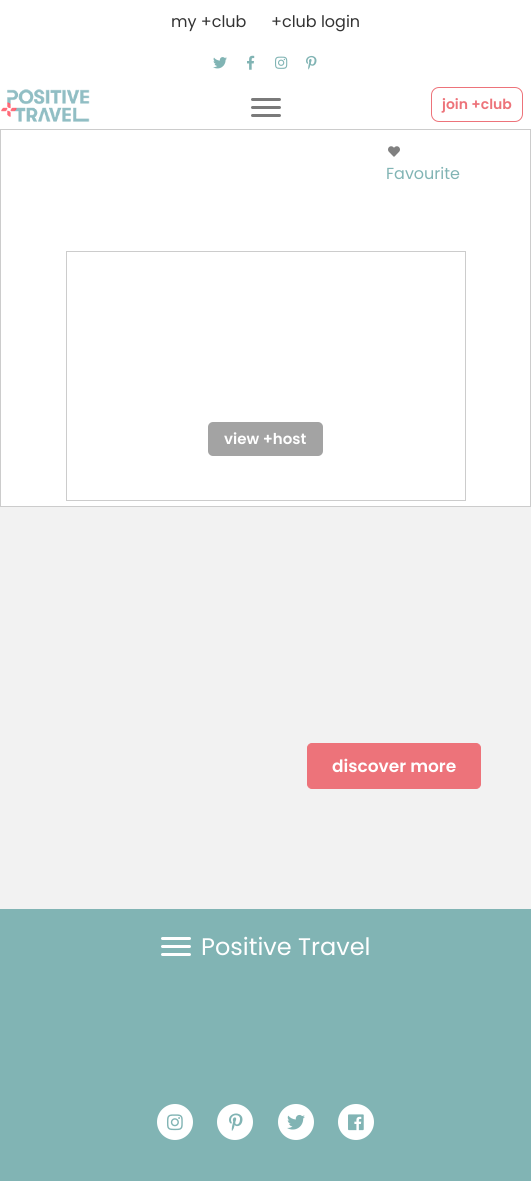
#include <cairo/cairo.h>
#include <math.h>
#include <stddef.h>


static void rounded_rect(cairo_t *cr, double x, double y, double w, double h, double r) {
  cairo_new_sub_path(cr);
  cairo_arc(cr, x + w - r, y + h - r, r, 0, M_PI / 2);
  cairo_arc(cr, x + r, y + h - r, r, M_PI / 2, M_PI);
  cairo_arc(cr, x + r, y + r, r, M_PI, 1.5 * M_PI);
  cairo_arc(cr, x + w - r, y + r, r, 1.5 * M_PI, 2 * M_PI);
  cairo_close_path(cr);
}

static void draw_image(cairo_t *cr, const char *path, double x, double y, double w, double h) {
  cairo_surface_t *image = cairo_image_surface_create_from_png(path);
  cairo_save(cr);
  cairo_set_source_surface(cr, image, x, y);
  cairo_rectangle(cr, x, y, w, h);
  cairo_fill(cr);
  cairo_restore(cr);
  cairo_surface_destroy(image);
}

static void draw(cairo_t *cr) {
  cairo_set_source_rgb(cr, 242 / 255.0, 242 / 255.0, 242 / 255.0);
  cairo_paint(cr);
  cairo_set_source_rgb(cr, 1, 1, 1);
  cairo_rectangle(cr, 0, 0, 531, 129);
  cairo_fill(cr);
  draw_image(cr, "images/1.png", 213, 57, 14, 12);
  draw_image(cr, "images/2.png", 247, 55, 8, 15);
  draw_image(cr, "images/3.png", 275, 56, 13, 13);
  draw_image(cr, "images/4.png", 306, 55, 11, 15);
  draw_image(cr, "images/5.png", 1, 89, 89, 33);
  cairo_set_source_rgb(cr, 122 / 255.0, 122 / 255.0, 122 / 255.0);
  rounded_rect(cr, 251, 106, 30, 3, 1.5);
  cairo_fill(cr);
  rounded_rect(cr, 251, 98, 30, 3, 1.5);
  cairo_fill(cr);
  rounded_rect(cr, 251, 114, 30, 3, 1.5);
  cairo_fill(cr);
  rounded_rect(cr, 431.5, 87.5, 91, 34, 7.5);
  cairo_set_source_rgb(cr, 237 / 255.0, 115 / 255.0, 122 / 255.0);
  cairo_set_line_width(cr, 1);
  cairo_stroke(cr);
  cairo_set_source_rgb(cr, 1, 1, 1);
  cairo_rectangle(cr, 0.5, 129.5, 530, 377);
  cairo_fill_preserve(cr);
  cairo_set_source_rgb(cr, 204 / 255.0, 204 / 255.0, 204 / 255.0);
  cairo_stroke(cr);
  draw_image(cr, "images/6.png", 388, 146, 12, 11);
  cairo_rectangle(cr, 66.5, 251.5, 399, 249);
  cairo_stroke(cr);
  cairo_set_source_rgb(cr, 163 / 255.0, 163 / 255.0, 163 / 255.0);
  rounded_rect(cr, 208, 422, 115, 34, 5);
  cairo_fill(cr);
  cairo_set_source_rgb(cr, 237 / 255.0, 115 / 255.0, 122 / 255.0);
  rounded_rect(cr, 307.5, 743.5, 173, 45, 4.5);
  cairo_fill_preserve(cr);
  cairo_stroke(cr);
  cairo_set_source_rgb(cr, 129 / 255.0, 180 / 255.0, 180 / 255.0);
  cairo_rectangle(cr, 0, 909, 531, 272);
  cairo_fill(cr);
  cairo_set_source_rgb(cr, 1, 1, 1);
  rounded_rect(cr, 161, 945, 30, 3, 1.5);
  cairo_fill(cr);
  rounded_rect(cr, 161, 937, 30, 3, 1.5);
  cairo_fill(cr);
  rounded_rect(cr, 161, 953, 30, 3, 1.5);
  cairo_fill(cr);
  cairo_arc(cr, 175, 1122, 18, 0, 2 * M_PI);
  cairo_fill(cr);
  draw_image(cr, "images/7.png", 167, 1114, 16, 17);
  cairo_arc(cr, 235, 1122, 18, 0, 2 * M_PI);
  cairo_fill(cr);
  draw_image(cr, "images/8.png", 229, 1113, 14, 18);
  cairo_arc(cr, 296, 1122, 18, 0, 2 * M_PI);
  cairo_fill(cr);
  draw_image(cr, "images/9.png", 287, 1114, 18, 16);
  cairo_arc(cr, 356, 1122, 18, 0, 2 * M_PI);
  cairo_fill(cr);
  draw_image(cr, "images/10.png", 348, 1114, 16, 17);
  cairo_select_font_face(cr, "Poppins", CAIRO_FONT_SLANT_NORMAL, CAIRO_FONT_WEIGHT_NORMAL);
  cairo_set_font_size(cr, 16);
  cairo_set_source_rgb(cr, 51 / 255.0, 51 / 255.0, 51 / 255.0);
  cairo_move_to(cr, 171, 27);
  cairo_show_text(cr, "my +club");
  cairo_move_to(cr, 271, 27);
  cairo_show_text(cr, "+club login");
  cairo_select_font_face(cr, "Poppins SemiBold", CAIRO_FONT_SLANT_NORMAL, CAIRO_FONT_WEIGHT_NORMAL);
  cairo_set_font_size(cr, 14);
  cairo_set_source_rgb(cr, 237 / 255.0, 115 / 255.0, 122 / 255.0);
  cairo_move_to(cr, 442, 109);
  cairo_show_text(cr, "join +club");
  cairo_select_font_face(cr, "Poppins", CAIRO_FONT_SLANT_NORMAL, CAIRO_FONT_WEIGHT_NORMAL);
  cairo_set_font_size(cr, 16);
  cairo_set_source_rgb(cr, 129 / 255.0, 180 / 255.0, 180 / 255.0);
  cairo_move_to(cr, 386, 179);
  cairo_show_text(cr, "Favourite");
  cairo_select_font_face(cr, "Poppins SemiBold", CAIRO_FONT_SLANT_NORMAL, CAIRO_FONT_WEIGHT_NORMAL);
  cairo_set_font_size(cr, 15);
  cairo_set_source_rgb(cr, 1, 1, 1);
  cairo_move_to(cr, 224, 444);
  cairo_show_text(cr, "view +host");
  cairo_set_font_size(cr, 17);
  cairo_move_to(cr, 332, 772);
  cairo_show_text(cr, "discover more");
  cairo_select_font_face(cr, "Poppins", CAIRO_FONT_SLANT_NORMAL, CAIRO_FONT_WEIGHT_NORMAL);
  cairo_set_font_size(cr, 24);
  cairo_move_to(cr, 201, 955);
  cairo_show_text(cr, "Positive Travel");
}

int main(void) {
  cairo_surface_t *surface = cairo_image_surface_create(CAIRO_FORMAT_RGB24, 531, 1181);
  cairo_t *cr = cairo_create(surface);
  cairo_font_options_t *options = cairo_font_options_create();
  cairo_font_options_set_hint_metrics(options, CAIRO_HINT_METRICS_OFF);
  cairo_font_options_set_hint_style(options, CAIRO_HINT_STYLE_NONE);
  cairo_set_font_options(cr, options);
  cairo_set_miter_limit(cr, 4);
  draw(cr);
  cairo_surface_write_to_png(surface, "out.png");
  cairo_font_options_destroy(options);
  cairo_destroy(cr);
  cairo_surface_destroy(surface);
  return 0;
}
